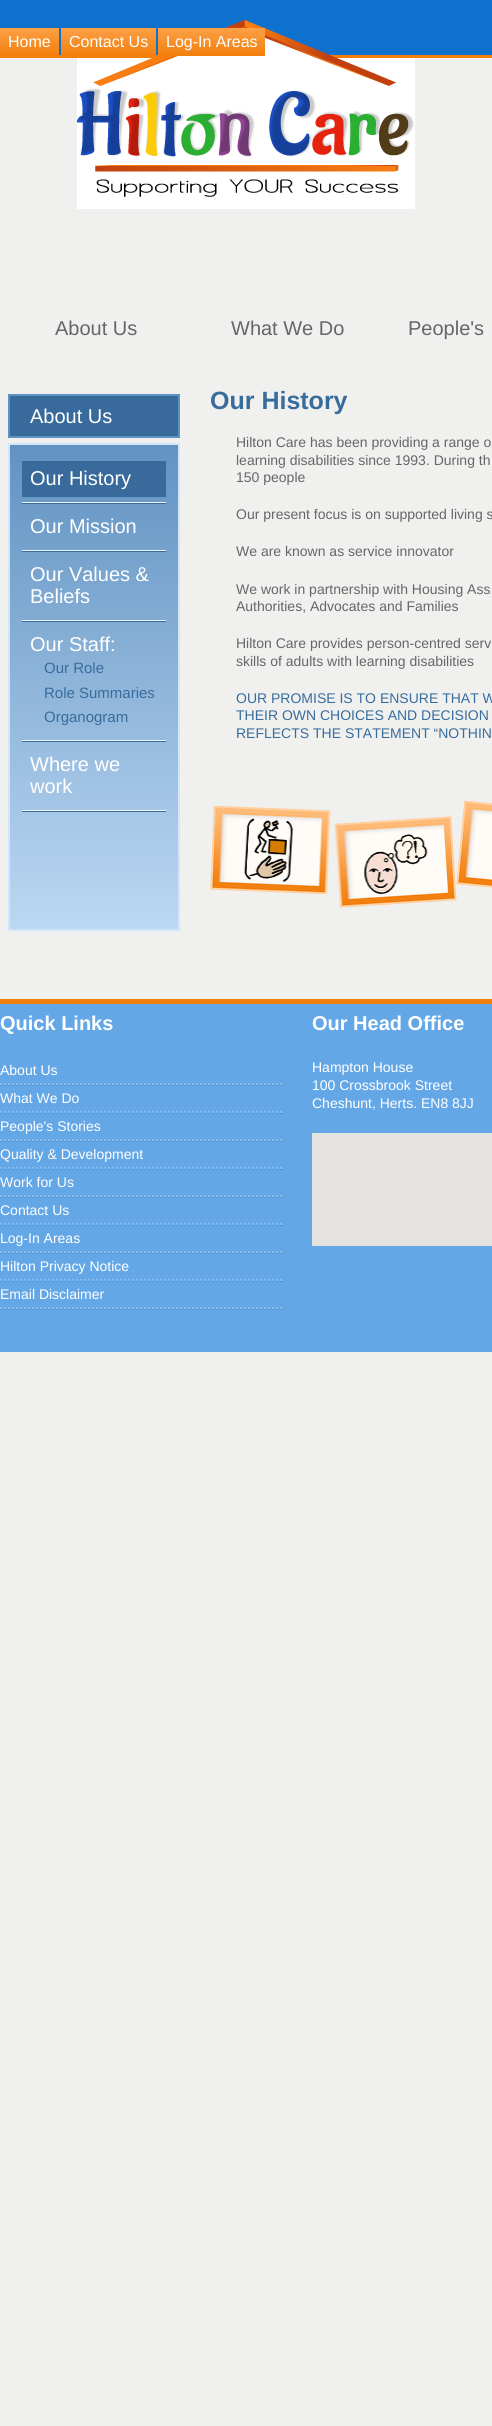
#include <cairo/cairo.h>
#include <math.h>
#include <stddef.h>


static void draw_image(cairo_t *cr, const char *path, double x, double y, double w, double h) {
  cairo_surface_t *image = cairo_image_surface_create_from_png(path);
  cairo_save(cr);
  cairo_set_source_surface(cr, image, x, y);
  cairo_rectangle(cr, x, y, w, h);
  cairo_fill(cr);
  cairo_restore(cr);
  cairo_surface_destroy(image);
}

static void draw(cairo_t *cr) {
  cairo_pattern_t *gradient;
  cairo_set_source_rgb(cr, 240 / 255.0, 240 / 255.0, 239 / 255.0);
  cairo_paint(cr);
  cairo_set_source_rgb(cr, 14 / 255.0, 113 / 255.0, 206 / 255.0);
  cairo_rectangle(cr, 0, 0, 492, 55);
  cairo_fill(cr);
  cairo_set_source_rgb(cr, 242 / 255.0, 126 / 255.0, 12 / 255.0);
  cairo_rectangle(cr, 0, 55, 492, 3);
  cairo_fill(cr);
  draw_image(cr, "images/1.png", 77, 20, 338, 189);
  gradient = cairo_pattern_create_linear(30, 28, 30, 56);
  cairo_pattern_add_color_stop_rgba(gradient, 0, 252 / 255.0, 160 / 255.0, 70 / 255.0, 1);
  cairo_pattern_add_color_stop_rgba(gradient, 1, 242 / 255.0, 127 / 255.0, 13 / 255.0, 1);
  cairo_set_source(cr, gradient);
  cairo_pattern_destroy(gradient);
  cairo_rectangle(cr, 0, 28, 59, 27);
  cairo_fill(cr);
  gradient = cairo_pattern_create_linear(109, 28, 109, 56);
  cairo_pattern_add_color_stop_rgba(gradient, 0, 252 / 255.0, 160 / 255.0, 70 / 255.0, 1);
  cairo_pattern_add_color_stop_rgba(gradient, 1, 242 / 255.0, 127 / 255.0, 13 / 255.0, 1);
  cairo_set_source(cr, gradient);
  cairo_pattern_destroy(gradient);
  cairo_rectangle(cr, 61, 28, 95, 27);
  cairo_fill(cr);
  gradient = cairo_pattern_create_linear(212, 28, 212, 56);
  cairo_pattern_add_color_stop_rgba(gradient, 0, 252 / 255.0, 160 / 255.0, 70 / 255.0, 1);
  cairo_pattern_add_color_stop_rgba(gradient, 1, 242 / 255.0, 127 / 255.0, 13 / 255.0, 1);
  cairo_set_source(cr, gradient);
  cairo_pattern_destroy(gradient);
  cairo_rectangle(cr, 158, 28, 107, 28);
  cairo_fill(cr);
  cairo_set_source_rgb(cr, 56 / 255.0, 107 / 255.0, 155 / 255.0);
  cairo_rectangle(cr, 9, 395, 170, 42);
  cairo_fill_preserve(cr);
  cairo_set_source_rgb(cr, 95 / 255.0, 147 / 255.0, 196 / 255.0);
  cairo_stroke(cr);
  gradient = cairo_pattern_create_linear(94, 445, 94, 929);
  cairo_pattern_add_color_stop_rgba(gradient, 0, 97 / 255.0, 147 / 255.0, 194 / 255.0, 1);
  cairo_pattern_add_color_stop_rgba(gradient, 1, 188 / 255.0, 215 / 255.0, 242 / 255.0, 1);
  cairo_set_source(cr, gradient);
  cairo_pattern_destroy(gradient);
  cairo_rectangle(cr, 10, 445, 168, 484);
  cairo_fill(cr);
  cairo_rectangle(cr, 9, 444, 170, 486);
  cairo_set_source_rgb(cr, 211 / 255.0, 230 / 255.0, 249 / 255.0);
  cairo_stroke(cr);
  cairo_set_source_rgb(cr, 238 / 255.0, 245 / 255.0, 251 / 255.0);
  cairo_rectangle(cr, 22, 502, 144, 1);
  cairo_fill(cr);
  cairo_set_source_rgb(cr, 56 / 255.0, 107 / 255.0, 155 / 255.0);
  cairo_rectangle(cr, 22, 461, 144, 36);
  cairo_fill(cr);
  cairo_rectangle(cr, 22, 503, 144, 1);
  cairo_fill(cr);
  cairo_set_source_rgb(cr, 238 / 255.0, 245 / 255.0, 251 / 255.0);
  cairo_rectangle(cr, 22, 550, 144, 1);
  cairo_fill(cr);
  cairo_set_source_rgb(cr, 56 / 255.0, 107 / 255.0, 155 / 255.0);
  cairo_rectangle(cr, 22, 551, 144, 1);
  cairo_fill(cr);
  cairo_set_source_rgb(cr, 238 / 255.0, 245 / 255.0, 251 / 255.0);
  cairo_rectangle(cr, 22, 620, 144, 1);
  cairo_fill(cr);
  cairo_set_source_rgb(cr, 56 / 255.0, 107 / 255.0, 155 / 255.0);
  cairo_rectangle(cr, 22, 621, 144, 1);
  cairo_fill(cr);
  cairo_set_source_rgb(cr, 238 / 255.0, 245 / 255.0, 251 / 255.0);
  cairo_rectangle(cr, 22, 740, 144, 1);
  cairo_fill(cr);
  cairo_set_source_rgb(cr, 56 / 255.0, 107 / 255.0, 155 / 255.0);
  cairo_rectangle(cr, 22, 741, 144, 1);
  cairo_fill(cr);
  cairo_set_source_rgb(cr, 238 / 255.0, 245 / 255.0, 251 / 255.0);
  cairo_rectangle(cr, 22, 810, 144, 1);
  cairo_fill(cr);
  cairo_set_source_rgb(cr, 56 / 255.0, 107 / 255.0, 155 / 255.0);
  cairo_rectangle(cr, 22, 811, 144, 1);
  cairo_fill(cr);
  draw_image(cr, "images/2.png", 210, 800, 282, 108);
  cairo_set_source_rgb(cr, 100 / 255.0, 167 / 255.0, 230 / 255.0);
  cairo_rectangle(cr, 0, 1004, 492, 348);
  cairo_fill(cr);
  cairo_set_source_rgb(cr, 242 / 255.0, 126 / 255.0, 12 / 255.0);
  cairo_rectangle(cr, 0, 999, 492, 5);
  cairo_fill(cr);
  cairo_new_path(cr);
  cairo_move_to(cr, 0, 1085);
  cairo_line_to(cr, 282, 1085);
  cairo_set_source_rgb(cr, 77 / 255.0, 146 / 255.0, 211 / 255.0);
  cairo_set_dash(cr, (double[]){2, 2}, 2, 0);
  cairo_stroke(cr);
  cairo_new_path(cr);
  cairo_move_to(cr, 0, 1084);
  cairo_line_to(cr, 282, 1084);
  cairo_set_source_rgb(cr, 139 / 255.0, 189 / 255.0, 236 / 255.0);
  cairo_stroke(cr);
  cairo_new_path(cr);
  cairo_move_to(cr, 0, 1113);
  cairo_line_to(cr, 282, 1113);
  cairo_set_source_rgb(cr, 77 / 255.0, 146 / 255.0, 211 / 255.0);
  cairo_stroke(cr);
  cairo_new_path(cr);
  cairo_move_to(cr, 0, 1112);
  cairo_line_to(cr, 282, 1112);
  cairo_set_source_rgb(cr, 139 / 255.0, 189 / 255.0, 236 / 255.0);
  cairo_stroke(cr);
  cairo_new_path(cr);
  cairo_move_to(cr, 0, 1141);
  cairo_line_to(cr, 282, 1141);
  cairo_set_source_rgb(cr, 77 / 255.0, 146 / 255.0, 211 / 255.0);
  cairo_stroke(cr);
  cairo_new_path(cr);
  cairo_move_to(cr, 0, 1140);
  cairo_line_to(cr, 282, 1140);
  cairo_set_source_rgb(cr, 139 / 255.0, 189 / 255.0, 236 / 255.0);
  cairo_stroke(cr);
  cairo_new_path(cr);
  cairo_move_to(cr, 0, 1169);
  cairo_line_to(cr, 282, 1169);
  cairo_set_source_rgb(cr, 77 / 255.0, 146 / 255.0, 211 / 255.0);
  cairo_stroke(cr);
  cairo_new_path(cr);
  cairo_move_to(cr, 0, 1168);
  cairo_line_to(cr, 282, 1168);
  cairo_set_source_rgb(cr, 139 / 255.0, 189 / 255.0, 236 / 255.0);
  cairo_stroke(cr);
  cairo_new_path(cr);
  cairo_move_to(cr, 0, 1197);
  cairo_line_to(cr, 282, 1197);
  cairo_set_source_rgb(cr, 77 / 255.0, 146 / 255.0, 211 / 255.0);
  cairo_stroke(cr);
  cairo_new_path(cr);
  cairo_move_to(cr, 0, 1196);
  cairo_line_to(cr, 282, 1196);
  cairo_set_source_rgb(cr, 139 / 255.0, 189 / 255.0, 236 / 255.0);
  cairo_stroke(cr);
  cairo_new_path(cr);
  cairo_move_to(cr, 0, 1225);
  cairo_line_to(cr, 282, 1225);
  cairo_set_source_rgb(cr, 77 / 255.0, 146 / 255.0, 211 / 255.0);
  cairo_stroke(cr);
  cairo_new_path(cr);
  cairo_move_to(cr, 0, 1224);
  cairo_line_to(cr, 282, 1224);
  cairo_set_source_rgb(cr, 139 / 255.0, 189 / 255.0, 236 / 255.0);
  cairo_stroke(cr);
  cairo_new_path(cr);
  cairo_move_to(cr, 0, 1253);
  cairo_line_to(cr, 282, 1253);
  cairo_set_source_rgb(cr, 77 / 255.0, 146 / 255.0, 211 / 255.0);
  cairo_stroke(cr);
  cairo_new_path(cr);
  cairo_move_to(cr, 0, 1252);
  cairo_line_to(cr, 282, 1252);
  cairo_set_source_rgb(cr, 139 / 255.0, 189 / 255.0, 236 / 255.0);
  cairo_stroke(cr);
  cairo_new_path(cr);
  cairo_move_to(cr, 0, 1281);
  cairo_line_to(cr, 282, 1281);
  cairo_set_source_rgb(cr, 77 / 255.0, 146 / 255.0, 211 / 255.0);
  cairo_stroke(cr);
  cairo_new_path(cr);
  cairo_move_to(cr, 0, 1280);
  cairo_line_to(cr, 282, 1280);
  cairo_set_source_rgb(cr, 139 / 255.0, 189 / 255.0, 236 / 255.0);
  cairo_stroke(cr);
  cairo_new_path(cr);
  cairo_move_to(cr, 0, 1309);
  cairo_line_to(cr, 282, 1309);
  cairo_set_source_rgb(cr, 77 / 255.0, 146 / 255.0, 211 / 255.0);
  cairo_stroke(cr);
  cairo_new_path(cr);
  cairo_move_to(cr, 0, 1308);
  cairo_line_to(cr, 282, 1308);
  cairo_set_source_rgb(cr, 139 / 255.0, 189 / 255.0, 236 / 255.0);
  cairo_stroke(cr);
  cairo_set_source_rgb(cr, 229 / 255.0, 227 / 255.0, 223 / 255.0);
  cairo_rectangle(cr, 312, 1133, 180, 113);
  cairo_fill(cr);
  cairo_select_font_face(cr, "Liberation Sans", CAIRO_FONT_SLANT_NORMAL, CAIRO_FONT_WEIGHT_NORMAL);
  cairo_set_font_size(cr, 16);
  cairo_set_source_rgb(cr, 1, 1, 1);
  cairo_move_to(cr, 8, 47);
  cairo_show_text(cr, "Home");
  cairo_move_to(cr, 69, 47);
  cairo_show_text(cr, "Contact Us");
  cairo_move_to(cr, 166, 47);
  cairo_show_text(cr, "Log-In Areas");
  cairo_set_font_size(cr, 20);
  cairo_set_source_rgb(cr, 102 / 255.0, 102 / 255.0, 102 / 255.0);
  cairo_move_to(cr, 55, 335);
  cairo_show_text(cr, "About Us");
  cairo_move_to(cr, 231, 335);
  cairo_show_text(cr, "What We Do");
  cairo_move_to(cr, 408, 335);
  cairo_show_text(cr, "People's");
  cairo_set_source_rgb(cr, 1, 1, 1);
  cairo_move_to(cr, 30, 423);
  cairo_show_text(cr, "About Us");
  cairo_move_to(cr, 30, 485);
  cairo_show_text(cr, "Our History");
  cairo_move_to(cr, 30, 533);
  cairo_show_text(cr, "Our Mission");
  cairo_move_to(cr, 30, 581);
  cairo_show_text(cr, "Our Values &");
  cairo_move_to(cr, 30, 603);
  cairo_show_text(cr, "Beliefs");
  cairo_move_to(cr, 30, 651);
  cairo_show_text(cr, "Our Staff:");
  cairo_set_font_size(cr, 15);
  cairo_set_source_rgb(cr, 56 / 255.0, 108 / 255.0, 157 / 255.0);
  cairo_move_to(cr, 44, 673);
  cairo_show_text(cr, "Our Role");
  cairo_move_to(cr, 44, 698);
  cairo_show_text(cr, "Role Summaries");
  cairo_move_to(cr, 44, 722);
  cairo_show_text(cr, "Organogram");
  cairo_set_font_size(cr, 20);
  cairo_set_source_rgb(cr, 1, 1, 1);
  cairo_move_to(cr, 30, 771);
  cairo_show_text(cr, "Where we");
  cairo_move_to(cr, 30, 793);
  cairo_show_text(cr, "work");
  cairo_select_font_face(cr, "Liberation Sans", CAIRO_FONT_SLANT_NORMAL, CAIRO_FONT_WEIGHT_BOLD);
  cairo_set_font_size(cr, 25);
  cairo_set_source_rgb(cr, 56 / 255.0, 108 / 255.0, 157 / 255.0);
  cairo_move_to(cr, 210, 409);
  cairo_show_text(cr, "Our History");
  cairo_select_font_face(cr, "Liberation Sans", CAIRO_FONT_SLANT_NORMAL, CAIRO_FONT_WEIGHT_NORMAL);
  cairo_set_font_size(cr, 14);
  cairo_set_source_rgb(cr, 102 / 255.0, 102 / 255.0, 102 / 255.0);
  cairo_move_to(cr, 236, 447);
  cairo_show_text(cr, "Hilton Care has been providing a range o");
  cairo_move_to(cr, 236, 465);
  cairo_show_text(cr, "learning disabilities since 1993. During th");
  cairo_move_to(cr, 236, 482);
  cairo_show_text(cr, "150 people");
  cairo_move_to(cr, 236, 519);
  cairo_show_text(cr, "Our present focus is on supported living s");
  cairo_move_to(cr, 236, 556);
  cairo_show_text(cr, "We are known as service innovator");
  cairo_move_to(cr, 236, 594);
  cairo_show_text(cr, "We work in partnership with Housing Ass");
  cairo_move_to(cr, 236, 611);
  cairo_show_text(cr, "Authorities, Advocates and Families");
  cairo_move_to(cr, 236, 648);
  cairo_show_text(cr, "Hilton Care provides person-centred serv");
  cairo_move_to(cr, 236, 666);
  cairo_show_text(cr, "skills of adults with learning disabilities");
  cairo_set_source_rgb(cr, 56 / 255.0, 108 / 255.0, 157 / 255.0);
  cairo_move_to(cr, 236, 703);
  cairo_show_text(cr, "OUR PROMISE IS TO ENSURE THAT W");
  cairo_move_to(cr, 236, 720);
  cairo_show_text(cr, "THEIR OWN CHOICES AND DECISION");
  cairo_move_to(cr, 236, 738);
  cairo_show_text(cr, "REFLECTS THE STATEMENT “NOTHIN");
  cairo_select_font_face(cr, "Liberation Sans", CAIRO_FONT_SLANT_NORMAL, CAIRO_FONT_WEIGHT_BOLD);
  cairo_set_font_size(cr, 20);
  cairo_set_source_rgb(cr, 1, 1, 1);
  cairo_move_to(cr, 0, 1030);
  cairo_show_text(cr, "Quick Links");
  cairo_select_font_face(cr, "Liberation Sans", CAIRO_FONT_SLANT_NORMAL, CAIRO_FONT_WEIGHT_NORMAL);
  cairo_set_font_size(cr, 14);
  cairo_move_to(cr, 0, 1075);
  cairo_show_text(cr, "About Us");
  cairo_move_to(cr, 0, 1103);
  cairo_show_text(cr, "What We Do");
  cairo_move_to(cr, 0, 1131);
  cairo_show_text(cr, "People's Stories");
  cairo_move_to(cr, 0, 1159);
  cairo_show_text(cr, "Quality & Development");
  cairo_move_to(cr, 0, 1187);
  cairo_show_text(cr, "Work for Us");
  cairo_move_to(cr, 0, 1215);
  cairo_show_text(cr, "Contact Us");
  cairo_move_to(cr, 0, 1243);
  cairo_show_text(cr, "Log-In Areas");
  cairo_move_to(cr, 0, 1271);
  cairo_show_text(cr, "Hilton Privacy Notice");
  cairo_move_to(cr, 0, 1299);
  cairo_show_text(cr, "Email Disclaimer");
  cairo_select_font_face(cr, "Liberation Sans", CAIRO_FONT_SLANT_NORMAL, CAIRO_FONT_WEIGHT_BOLD);
  cairo_set_font_size(cr, 20);
  cairo_move_to(cr, 312, 1030);
  cairo_show_text(cr, "Our Head Office");
  cairo_select_font_face(cr, "Liberation Sans", CAIRO_FONT_SLANT_NORMAL, CAIRO_FONT_WEIGHT_NORMAL);
  cairo_set_font_size(cr, 14);
  cairo_move_to(cr, 312, 1072);
  cairo_show_text(cr, "Hampton House");
  cairo_move_to(cr, 312, 1090);
  cairo_show_text(cr, "100 Crossbrook Street");
  cairo_move_to(cr, 312, 1108);
  cairo_show_text(cr, "Cheshunt, Herts. EN8 8JJ");
}

int main(void) {
  cairo_surface_t *surface = cairo_image_surface_create(CAIRO_FORMAT_RGB24, 492, 2426);
  cairo_t *cr = cairo_create(surface);
  cairo_font_options_t *options = cairo_font_options_create();
  cairo_font_options_set_hint_metrics(options, CAIRO_HINT_METRICS_OFF);
  cairo_font_options_set_hint_style(options, CAIRO_HINT_STYLE_NONE);
  cairo_set_font_options(cr, options);
  cairo_set_miter_limit(cr, 4);
  draw(cr);
  cairo_surface_write_to_png(surface, "out.png");
  cairo_font_options_destroy(options);
  cairo_destroy(cr);
  cairo_surface_destroy(surface);
  return 0;
}
